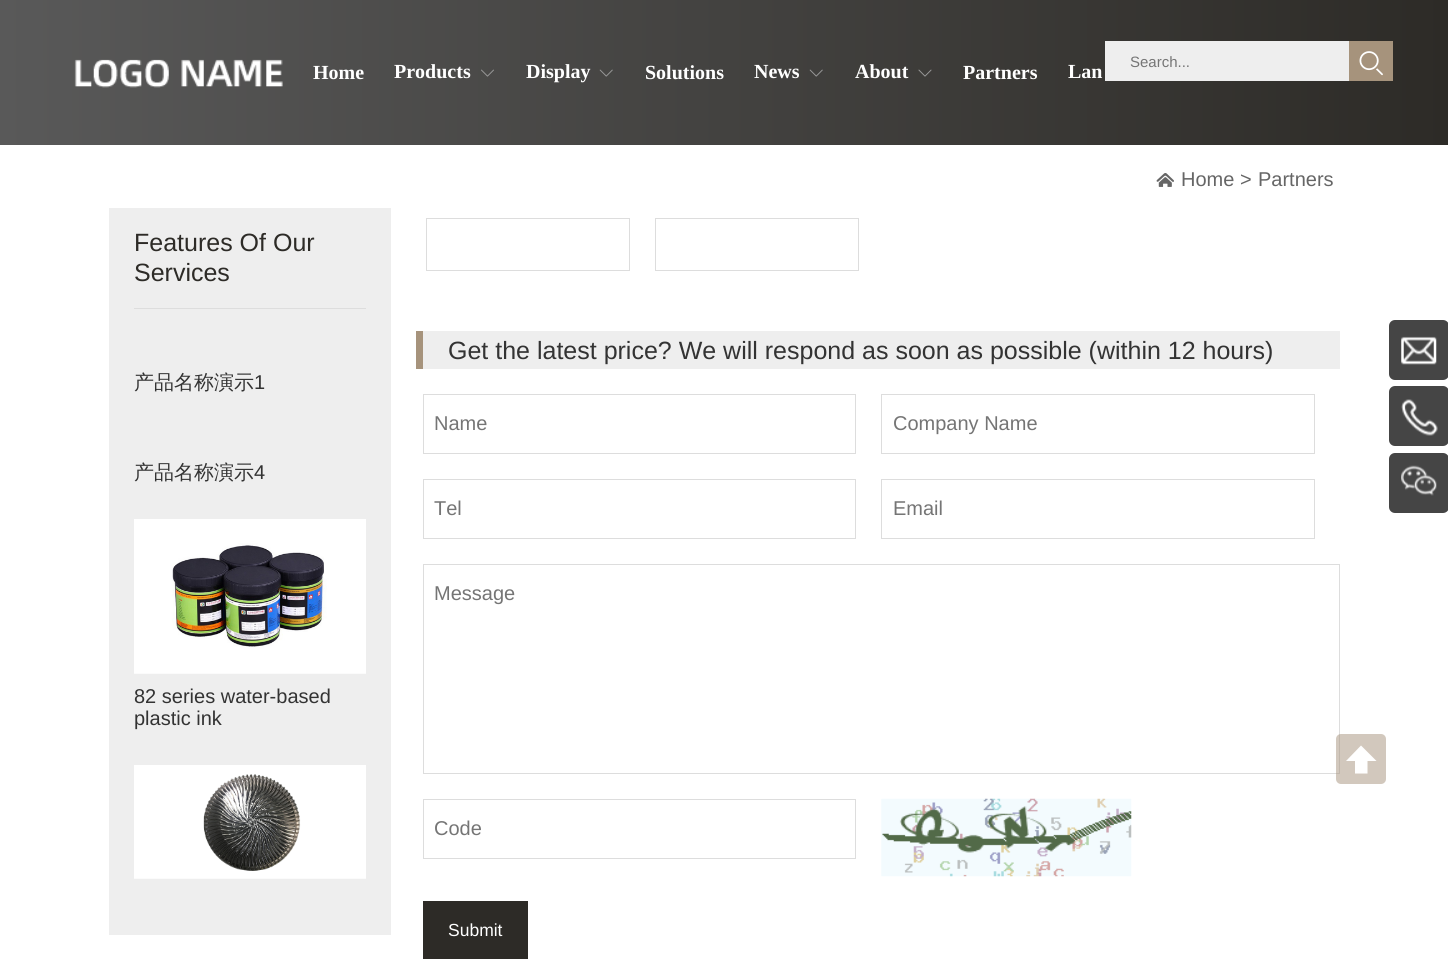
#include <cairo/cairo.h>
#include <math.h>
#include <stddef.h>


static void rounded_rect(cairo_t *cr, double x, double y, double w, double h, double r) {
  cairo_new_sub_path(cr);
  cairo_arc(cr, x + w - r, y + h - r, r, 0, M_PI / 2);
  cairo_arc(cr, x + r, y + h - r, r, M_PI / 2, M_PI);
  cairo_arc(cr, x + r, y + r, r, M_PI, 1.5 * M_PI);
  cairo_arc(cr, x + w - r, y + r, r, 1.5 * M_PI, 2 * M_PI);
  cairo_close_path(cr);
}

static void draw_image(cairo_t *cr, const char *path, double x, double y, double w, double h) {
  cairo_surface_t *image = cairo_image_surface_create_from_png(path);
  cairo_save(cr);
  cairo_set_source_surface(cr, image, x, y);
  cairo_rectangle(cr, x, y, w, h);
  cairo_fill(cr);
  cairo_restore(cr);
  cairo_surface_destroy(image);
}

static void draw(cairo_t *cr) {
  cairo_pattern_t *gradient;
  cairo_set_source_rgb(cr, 1, 1, 1);
  cairo_paint(cr);
  gradient = cairo_pattern_create_linear(0, 73, 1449, 72);
  cairo_pattern_add_color_stop_rgba(gradient, 0, 89 / 255.0, 89 / 255.0, 89 / 255.0, 1);
  cairo_pattern_add_color_stop_rgba(gradient, 1, 45 / 255.0, 43 / 255.0, 39 / 255.0, 1);
  cairo_set_source(cr, gradient);
  cairo_pattern_destroy(gradient);
  cairo_rectangle(cr, 0, 0, 1448, 145);
  cairo_fill(cr);
  draw_image(cr, "images/1.png", 74, 59, 209, 29);
  draw_image(cr, "images/2.png", 481, 69, 13, 8);
  draw_image(cr, "images/3.png", 599, 69, 14, 8);
  draw_image(cr, "images/4.png", 809, 69, 14, 8);
  draw_image(cr, "images/5.png", 918, 69, 14, 8);
  cairo_set_source_rgb(cr, 238 / 255.0, 238 / 255.0, 238 / 255.0);
  cairo_rectangle(cr, 1105, 41, 244, 40);
  cairo_fill(cr);
  cairo_set_source_rgb(cr, 166 / 255.0, 147 / 255.0, 124 / 255.0);
  cairo_rectangle(cr, 1349, 41, 44, 40);
  cairo_fill(cr);
  draw_image(cr, "images/6.png", 1359, 51, 24, 25);
  draw_image(cr, "images/7.png", 1156, 173, 18, 14);
  cairo_set_source_rgb(cr, 238 / 255.0, 238 / 255.0, 238 / 255.0);
  cairo_rectangle(cr, 109, 208, 282, 727);
  cairo_fill(cr);
  cairo_set_source_rgb(cr, 221 / 255.0, 221 / 255.0, 221 / 255.0);
  cairo_rectangle(cr, 134, 308, 232, 1);
  cairo_fill(cr);
  draw_image(cr, "images/8.png", 134, 519, 232, 155);
  draw_image(cr, "images/9.png", 134, 765, 232, 114);
  cairo_rectangle(cr, 426.5, 218.5, 203, 52);
  cairo_set_line_width(cr, 1);
  cairo_stroke(cr);
  cairo_rectangle(cr, 655.5, 218.5, 203, 52);
  cairo_stroke(cr);
  cairo_set_source_rgb(cr, 238 / 255.0, 238 / 255.0, 238 / 255.0);
  cairo_rectangle(cr, 423, 331, 917, 38);
  cairo_fill(cr);
  cairo_set_source_rgb(cr, 166 / 255.0, 147 / 255.0, 124 / 255.0);
  cairo_rectangle(cr, 416, 331, 7, 38);
  cairo_fill(cr);
  cairo_rectangle(cr, 423.5, 394.5, 432, 59);
  cairo_set_source_rgb(cr, 221 / 255.0, 221 / 255.0, 221 / 255.0);
  cairo_stroke(cr);
  cairo_rectangle(cr, 881.5, 394.5, 433, 59);
  cairo_stroke(cr);
  cairo_rectangle(cr, 423.5, 479.5, 432, 59);
  cairo_stroke(cr);
  cairo_rectangle(cr, 881.5, 479.5, 433, 59);
  cairo_stroke(cr);
  cairo_rectangle(cr, 423.5, 564.5, 916, 209);
  cairo_stroke(cr);
  cairo_rectangle(cr, 423.5, 799.5, 432, 59);
  cairo_stroke(cr);
  draw_image(cr, "images/10.png", 881, 798, 251, 79);
  cairo_set_source_rgb(cr, 45 / 255.0, 43 / 255.0, 39 / 255.0);
  cairo_rectangle(cr, 423, 901, 105, 58);
  cairo_fill(cr);
  cairo_set_source_rgb(cr, 69 / 255.0, 69 / 255.0, 69 / 255.0);
  rounded_rect(cr, 1389, 320, 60, 60, 6);
  cairo_fill(cr);
  draw_image(cr, "images/11.png", 1401, 336, 36, 29);
  rounded_rect(cr, 1389, 386, 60, 60, 6);
  cairo_fill(cr);
  draw_image(cr, "images/12.png", 1401, 399, 37, 37);
  rounded_rect(cr, 1389, 453, 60, 60, 6);
  cairo_fill(cr);
  draw_image(cr, "images/13.png", 1401, 465, 36, 31);
  cairo_set_source_rgba(cr, 166 / 255.0, 147 / 255.0, 124 / 255.0, 0.5);
  rounded_rect(cr, 1336, 734, 50, 50, 5);
  cairo_fill(cr);
  cairo_set_source_rgb(cr, 1, 1, 1);
  cairo_new_path(cr);
  cairo_move_to(cr, 1376.5, 761);
  cairo_line_to(cr, 1361, 745.5);
  cairo_line_to(cr, 1346, 761);
  cairo_line_to(cr, 1355, 761);
  cairo_line_to(cr, 1355, 773.5);
  cairo_line_to(cr, 1367.5, 773.5);
  cairo_line_to(cr, 1367.5, 761);
  cairo_close_path(cr);
  cairo_fill(cr);
  cairo_select_font_face(cr, "Liberation Serif", CAIRO_FONT_SLANT_NORMAL, CAIRO_FONT_WEIGHT_BOLD);
  cairo_set_font_size(cr, 20);
  cairo_move_to(cr, 313, 79);
  cairo_show_text(cr, "Home");
  cairo_move_to(cr, 394, 78);
  cairo_show_text(cr, "Products");
  cairo_move_to(cr, 526, 78);
  cairo_show_text(cr, "Display");
  cairo_move_to(cr, 645, 79);
  cairo_show_text(cr, "Solutions");
  cairo_move_to(cr, 754, 78);
  cairo_show_text(cr, "News");
  cairo_move_to(cr, 855, 78);
  cairo_show_text(cr, "About");
  cairo_move_to(cr, 963, 79);
  cairo_show_text(cr, "Partners");
  cairo_move_to(cr, 1068, 78);
  cairo_show_text(cr, "Lan");
  cairo_select_font_face(cr, "Liberation Sans", CAIRO_FONT_SLANT_NORMAL, CAIRO_FONT_WEIGHT_NORMAL);
  cairo_set_font_size(cr, 15);
  cairo_set_source_rgb(cr, 117 / 255.0, 117 / 255.0, 117 / 255.0);
  cairo_move_to(cr, 1130, 67);
  cairo_show_text(cr, "Search...");
  cairo_set_font_size(cr, 20);
  cairo_set_source_rgb(cr, 102 / 255.0, 102 / 255.0, 102 / 255.0);
  cairo_move_to(cr, 1181, 186);
  cairo_show_text(cr, "Home");
  cairo_move_to(cr, 1240, 186);
  cairo_show_text(cr, ">");
  cairo_move_to(cr, 1258, 186);
  cairo_show_text(cr, "Partners");
  cairo_set_font_size(cr, 25);
  cairo_set_source_rgb(cr, 45 / 255.0, 43 / 255.0, 39 / 255.0);
  cairo_move_to(cr, 134, 251);
  cairo_show_text(cr, "Features Of Our");
  cairo_move_to(cr, 134, 281);
  cairo_show_text(cr, "Services");
  cairo_select_font_face(cr, "WenQuanYi Zen Hei Medium", CAIRO_FONT_SLANT_NORMAL, CAIRO_FONT_WEIGHT_NORMAL);
  cairo_set_font_size(cr, 20);
  cairo_set_source_rgb(cr, 51 / 255.0, 51 / 255.0, 51 / 255.0);
  cairo_move_to(cr, 134, 389);
  cairo_show_text(cr, "产品名称演示");
  cairo_select_font_face(cr, "Liberation Sans", CAIRO_FONT_SLANT_NORMAL, CAIRO_FONT_WEIGHT_NORMAL);
  cairo_move_to(cr, 254, 389);
  cairo_show_text(cr, "1");
  cairo_select_font_face(cr, "WenQuanYi Zen Hei Medium", CAIRO_FONT_SLANT_NORMAL, CAIRO_FONT_WEIGHT_NORMAL);
  cairo_move_to(cr, 134, 479);
  cairo_show_text(cr, "产品名称演示");
  cairo_select_font_face(cr, "Liberation Sans", CAIRO_FONT_SLANT_NORMAL, CAIRO_FONT_WEIGHT_NORMAL);
  cairo_move_to(cr, 254, 479);
  cairo_show_text(cr, "4");
  cairo_move_to(cr, 134, 703);
  cairo_show_text(cr, "82 series water-based");
  cairo_move_to(cr, 134, 725);
  cairo_show_text(cr, "plastic ink");
  cairo_set_font_size(cr, 25);
  cairo_move_to(cr, 448, 359);
  cairo_show_text(cr, "Get the latest price? We will respond as soon as possible (within 12 hours)");
  cairo_set_font_size(cr, 20);
  cairo_set_source_rgb(cr, 117 / 255.0, 117 / 255.0, 117 / 255.0);
  cairo_move_to(cr, 434, 430);
  cairo_show_text(cr, "Name");
  cairo_move_to(cr, 893, 430);
  cairo_show_text(cr, "Company Name");
  cairo_move_to(cr, 434, 515);
  cairo_show_text(cr, "Tel");
  cairo_move_to(cr, 893, 515);
  cairo_show_text(cr, "Email");
  cairo_move_to(cr, 434, 600);
  cairo_show_text(cr, "Message");
  cairo_move_to(cr, 434, 835);
  cairo_show_text(cr, "Code");
  cairo_set_font_size(cr, 17.5);
  cairo_set_source_rgb(cr, 1, 1, 1);
  cairo_move_to(cr, 448, 936);
  cairo_show_text(cr, "Submit");
}

int main(void) {
  cairo_surface_t *surface = cairo_image_surface_create(CAIRO_FORMAT_RGB24, 1448, 971);
  cairo_t *cr = cairo_create(surface);
  cairo_font_options_t *options = cairo_font_options_create();
  cairo_font_options_set_hint_metrics(options, CAIRO_HINT_METRICS_OFF);
  cairo_font_options_set_hint_style(options, CAIRO_HINT_STYLE_NONE);
  cairo_set_font_options(cr, options);
  cairo_set_miter_limit(cr, 4);
  draw(cr);
  cairo_surface_write_to_png(surface, "out.png");
  cairo_font_options_destroy(options);
  cairo_destroy(cr);
  cairo_surface_destroy(surface);
  return 0;
}
